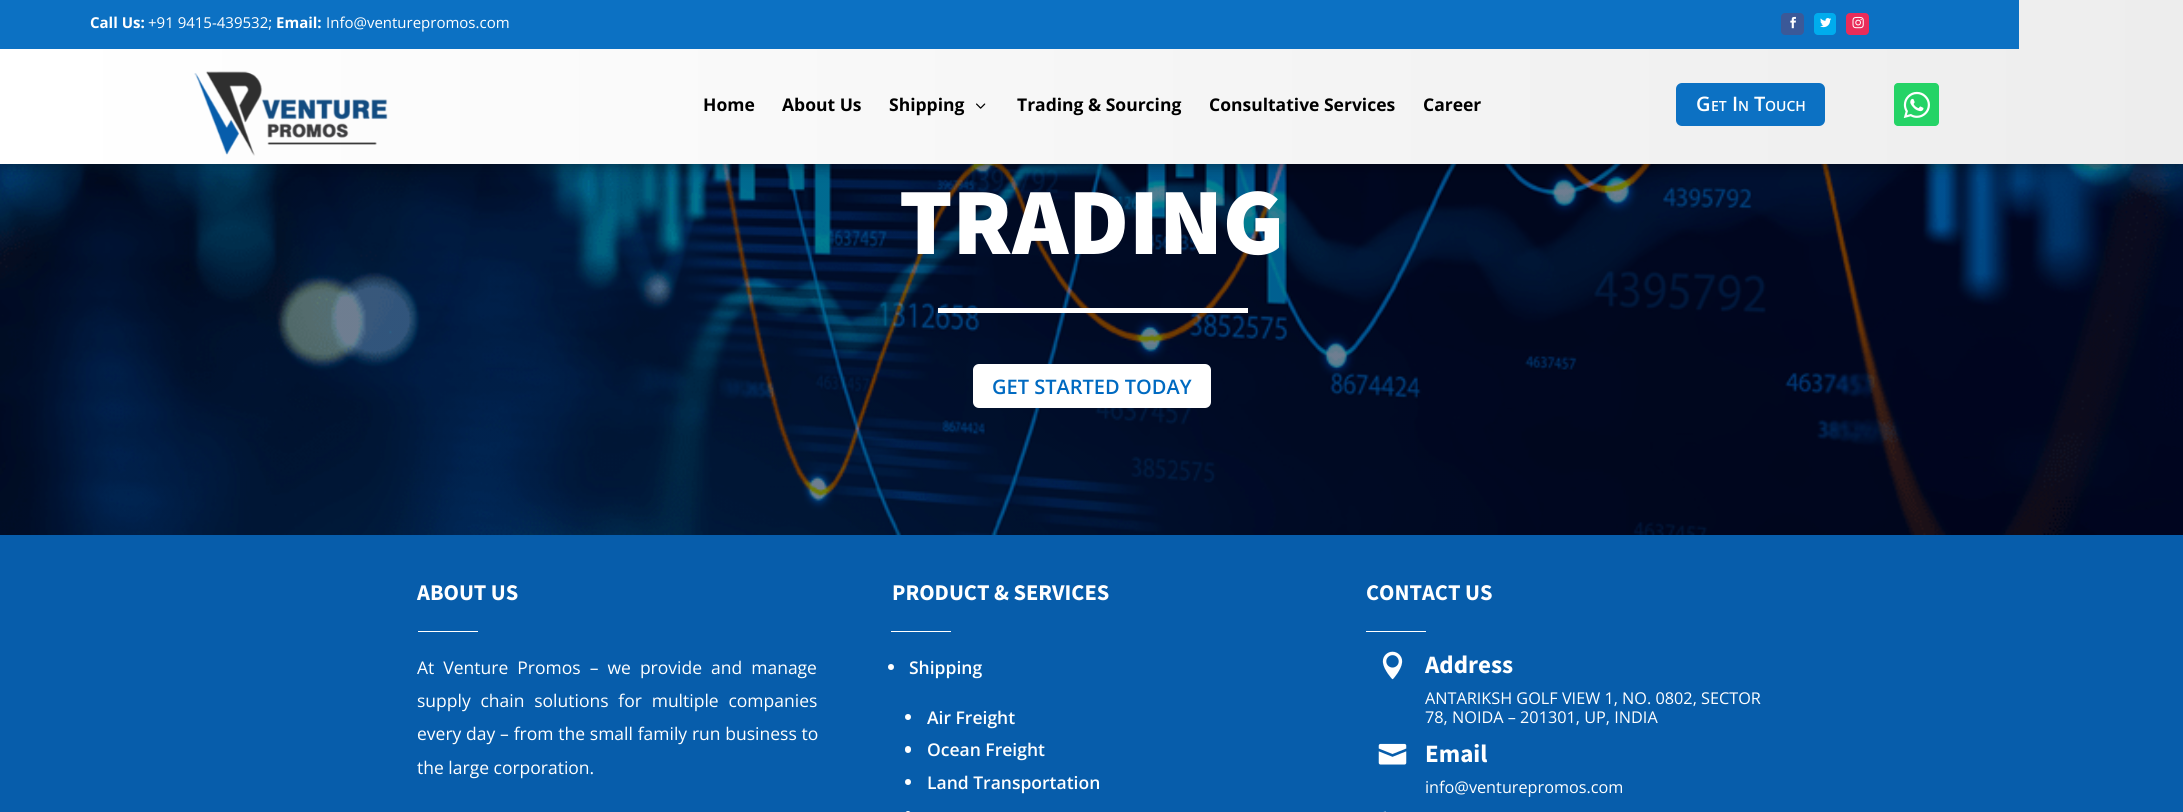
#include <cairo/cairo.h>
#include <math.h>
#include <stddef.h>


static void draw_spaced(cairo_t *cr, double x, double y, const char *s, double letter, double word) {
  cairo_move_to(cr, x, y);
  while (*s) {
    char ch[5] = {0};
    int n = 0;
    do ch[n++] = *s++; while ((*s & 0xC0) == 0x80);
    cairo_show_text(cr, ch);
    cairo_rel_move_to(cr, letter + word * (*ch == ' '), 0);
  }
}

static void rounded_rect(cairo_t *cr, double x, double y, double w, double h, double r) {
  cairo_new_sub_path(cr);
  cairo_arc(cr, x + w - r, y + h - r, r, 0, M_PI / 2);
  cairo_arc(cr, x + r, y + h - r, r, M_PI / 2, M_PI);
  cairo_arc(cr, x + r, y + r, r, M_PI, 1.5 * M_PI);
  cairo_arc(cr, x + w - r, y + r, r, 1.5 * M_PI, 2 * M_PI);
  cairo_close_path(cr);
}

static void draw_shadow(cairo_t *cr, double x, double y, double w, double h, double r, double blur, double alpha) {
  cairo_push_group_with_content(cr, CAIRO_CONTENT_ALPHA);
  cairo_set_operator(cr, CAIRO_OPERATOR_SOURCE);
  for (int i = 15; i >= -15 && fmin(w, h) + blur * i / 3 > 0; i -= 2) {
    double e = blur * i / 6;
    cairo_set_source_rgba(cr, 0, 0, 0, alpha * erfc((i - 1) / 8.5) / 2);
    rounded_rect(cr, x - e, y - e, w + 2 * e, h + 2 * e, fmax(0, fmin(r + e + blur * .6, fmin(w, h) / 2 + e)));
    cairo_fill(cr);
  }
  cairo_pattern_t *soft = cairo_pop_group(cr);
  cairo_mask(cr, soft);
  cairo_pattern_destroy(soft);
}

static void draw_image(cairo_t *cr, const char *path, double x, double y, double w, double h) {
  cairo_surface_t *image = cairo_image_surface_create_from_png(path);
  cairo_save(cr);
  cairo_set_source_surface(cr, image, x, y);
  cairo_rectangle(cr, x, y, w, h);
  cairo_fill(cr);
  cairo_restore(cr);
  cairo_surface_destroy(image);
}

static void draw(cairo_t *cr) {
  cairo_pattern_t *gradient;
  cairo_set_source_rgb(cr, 1, 1, 1);
  cairo_paint(cr);
  draw_image(cr, "images/7.png", 0, 164, 2183, 371);
  cairo_set_source_rgb(cr, 0, 0, 0);
  draw_shadow(cr, 5, 13, 2174, 153, 0, 7.5, 0.43);
  gradient = cairo_pattern_create_linear(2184, 82, 0, 82);
  cairo_pattern_add_color_stop_rgba(gradient, 0, 237 / 255.0, 237 / 255.0, 237 / 255.0, 1);
  cairo_pattern_add_color_stop_rgba(gradient, 0.98, 1, 1, 1, 1);
  cairo_set_source(cr, gradient);
  cairo_pattern_destroy(gradient);
  cairo_rectangle(cr, 0, 0, 2183, 164);
  cairo_fill(cr);
  cairo_set_source_rgb(cr, 12 / 255.0, 113 / 255.0, 195 / 255.0);
  cairo_rectangle(cr, 0, 0, 2019, 49);
  cairo_fill(cr);
  cairo_set_source_rgb(cr, 59 / 255.0, 89 / 255.0, 152 / 255.0);
  rounded_rect(cr, 1781, 13, 23, 22, 4);
  cairo_fill(cr);
  draw_image(cr, "images/1.png", 1790, 16, 6, 13);
  cairo_set_source_rgb(cr, 0, 172 / 255.0, 237 / 255.0);
  rounded_rect(cr, 1814, 13, 22, 22, 4);
  cairo_fill(cr);
  draw_image(cr, "images/2.png", 1820, 18, 12, 10);
  cairo_set_source_rgb(cr, 234 / 255.0, 44 / 255.0, 89 / 255.0);
  rounded_rect(cr, 1846, 13, 23, 22, 4);
  cairo_fill(cr);
  draw_image(cr, "images/3.png", 1852, 16, 12, 13);
  draw_image(cr, "images/4.png", 194, 71, 194, 85);
  draw_image(cr, "images/5.png", 976, 103, 10, 6);
  cairo_set_source_rgb(cr, 12 / 255.0, 113 / 255.0, 195 / 255.0);
  rounded_rect(cr, 1676, 83, 149, 43, 6);
  cairo_fill(cr);
  cairo_set_source_rgb(cr, 37 / 255.0, 211 / 255.0, 102 / 255.0);
  rounded_rect(cr, 1894, 83, 45, 43, 4);
  cairo_fill(cr);
  draw_image(cr, "images/6.png", 1903, 91, 27, 27);
  cairo_set_source_rgb(cr, 1, 1, 1);
  cairo_rectangle(cr, 938, 308, 310, 5);
  cairo_fill(cr);
  rounded_rect(cr, 973, 364, 238, 44, 6);
  cairo_fill(cr);
  cairo_set_source_rgb(cr, 7 / 255.0, 93 / 255.0, 171 / 255.0);
  cairo_rectangle(cr, 0, 535, 2183, 277);
  cairo_fill(cr);
  cairo_set_source_rgb(cr, 1, 1, 1);
  cairo_rectangle(cr, 418, 631, 60, 1);
  cairo_fill(cr);
  cairo_rectangle(cr, 891, 631, 60, 1);
  cairo_fill(cr);
  cairo_arc(cr, 891, 667, 3, 0, 2 * M_PI);
  cairo_fill(cr);
  cairo_arc(cr, 908, 717, 3, 0, 2 * M_PI);
  cairo_fill(cr);
  rounded_rect(cr, 905, 746, 6, 7, 3);
  cairo_fill(cr);
  cairo_arc(cr, 908, 782, 3, 0, 2 * M_PI);
  cairo_fill(cr);
  rounded_rect(cr, 905, 811, 6, 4, 3);
  cairo_fill(cr);
  cairo_rectangle(cr, 1366, 631, 60, 1);
  cairo_fill(cr);
  draw_image(cr, "images/8.png", 1382, 651, 21, 29);
  draw_image(cr, "images/9.png", 1378, 743, 29, 22);
  draw_image(cr, "images/10.png", 1383, 811, 3, 1);
  cairo_select_font_face(cr, "Open Sans", CAIRO_FONT_SLANT_NORMAL, CAIRO_FONT_WEIGHT_BOLD);
  cairo_set_font_size(cr, 15);
  cairo_move_to(cr, 90, 28);
  cairo_show_text(cr, "Call Us:");
  cairo_select_font_face(cr, "Open Sans", CAIRO_FONT_SLANT_NORMAL, CAIRO_FONT_WEIGHT_NORMAL);
  cairo_move_to(cr, 148, 28);
  cairo_show_text(cr, "+91 9415-439532;");
  cairo_select_font_face(cr, "Open Sans", CAIRO_FONT_SLANT_NORMAL, CAIRO_FONT_WEIGHT_BOLD);
  cairo_move_to(cr, 276, 28);
  cairo_show_text(cr, "Email:");
  cairo_select_font_face(cr, "Open Sans", CAIRO_FONT_SLANT_NORMAL, CAIRO_FONT_WEIGHT_NORMAL);
  cairo_move_to(cr, 326, 28);
  cairo_show_text(cr, "Info@venturepromos.com");
  cairo_select_font_face(cr, "Open Sans", CAIRO_FONT_SLANT_NORMAL, CAIRO_FONT_WEIGHT_BOLD);
  cairo_set_font_size(cr, 17.5);
  cairo_set_source_rgb(cr, 0, 0, 0);
  cairo_move_to(cr, 703, 111);
  cairo_show_text(cr, "Home");
  cairo_move_to(cr, 782, 111);
  cairo_show_text(cr, "About Us");
  cairo_move_to(cr, 889, 111);
  cairo_show_text(cr, "Shipping");
  cairo_move_to(cr, 1017, 111);
  cairo_show_text(cr, "Trading & Sourcing");
  cairo_move_to(cr, 1209, 111);
  cairo_show_text(cr, "Consultative Services");
  cairo_move_to(cr, 1423, 111);
  cairo_show_text(cr, "Career");
  cairo_select_font_face(cr, "Open Sans SemiBold", CAIRO_FONT_SLANT_NORMAL, CAIRO_FONT_WEIGHT_NORMAL);
  cairo_set_font_size(cr, 20);
  cairo_set_source_rgb(cr, 1, 1, 1);
  cairo_move_to(cr, 1696, 111);
  cairo_show_text(cr, "G");
  cairo_set_font_size(cr, 14);
  cairo_move_to(cr, 1711, 111);
  cairo_show_text(cr, "ET");
  cairo_set_font_size(cr, 20);
  cairo_move_to(cr, 1732, 111);
  cairo_show_text(cr, "I");
  cairo_set_font_size(cr, 14);
  cairo_move_to(cr, 1738, 111);
  cairo_show_text(cr, "N");
  cairo_set_font_size(cr, 20);
  cairo_move_to(cr, 1754, 111);
  cairo_show_text(cr, "T");
  cairo_set_font_size(cr, 14);
  cairo_move_to(cr, 1765, 111);
  cairo_show_text(cr, "OUCH");
  cairo_select_font_face(cr, "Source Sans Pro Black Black", CAIRO_FONT_SLANT_NORMAL, CAIRO_FONT_WEIGHT_NORMAL);
  cairo_set_font_size(cr, 95);
  cairo_move_to(cr, 899, 254);
  cairo_show_text(cr, "TRADING");
  cairo_select_font_face(cr, "Open Sans SemiBold", CAIRO_FONT_SLANT_NORMAL, CAIRO_FONT_WEIGHT_NORMAL);
  cairo_set_font_size(cr, 20);
  cairo_set_source_rgb(cr, 0, 106 / 255.0, 193 / 255.0);
  cairo_move_to(cr, 992, 394);
  cairo_show_text(cr, "GET STARTED TODAY");
  cairo_select_font_face(cr, "Source Sans Pro", CAIRO_FONT_SLANT_NORMAL, CAIRO_FONT_WEIGHT_BOLD);
  cairo_set_font_size(cr, 22.5);
  cairo_set_source_rgb(cr, 1, 1, 1);
  cairo_move_to(cr, 417, 600);
  cairo_show_text(cr, "ABOUT US");
  cairo_select_font_face(cr, "Open Sans", CAIRO_FONT_SLANT_NORMAL, CAIRO_FONT_WEIGHT_NORMAL);
  cairo_set_font_size(cr, 17.5);
  draw_spaced(cr, 417, 674, "At Venture Promos – we provide and manage", 0, 4.5);
  draw_spaced(cr, 417, 707, "supply chain solutions for multiple companies", 0, 5.25);
  draw_spaced(cr, 417, 740, "every day – from the small family run business to", 0, 0.25);
  cairo_move_to(cr, 417, 774);
  cairo_show_text(cr, "the large corporation.");
  cairo_select_font_face(cr, "Source Sans Pro", CAIRO_FONT_SLANT_NORMAL, CAIRO_FONT_WEIGHT_BOLD);
  cairo_set_font_size(cr, 22.5);
  cairo_move_to(cr, 892, 600);
  cairo_show_text(cr, "PRODUCT & SERVICES");
  cairo_select_font_face(cr, "Open Sans SemiBold", CAIRO_FONT_SLANT_NORMAL, CAIRO_FONT_WEIGHT_NORMAL);
  cairo_set_font_size(cr, 17.5);
  cairo_move_to(cr, 909, 674);
  cairo_show_text(cr, "Shipping");
  cairo_move_to(cr, 927, 724);
  cairo_show_text(cr, "Air Freight");
  cairo_move_to(cr, 927, 756);
  cairo_show_text(cr, "Ocean Freight");
  cairo_move_to(cr, 927, 789);
  cairo_show_text(cr, "Land Transportation");
  cairo_select_font_face(cr, "Source Sans Pro", CAIRO_FONT_SLANT_NORMAL, CAIRO_FONT_WEIGHT_BOLD);
  cairo_set_font_size(cr, 22.5);
  cairo_move_to(cr, 1366, 600);
  cairo_show_text(cr, "CONTACT US");
  cairo_set_font_size(cr, 25);
  cairo_move_to(cr, 1425, 673);
  cairo_show_text(cr, "Address");
  cairo_select_font_face(cr, "Open Sans", CAIRO_FONT_SLANT_NORMAL, CAIRO_FONT_WEIGHT_NORMAL);
  cairo_set_font_size(cr, 16.25);
  cairo_move_to(cr, 1425, 704);
  cairo_show_text(cr, "ANTARIKSH GOLF VIEW 1, NO. 0802, SECTOR");
  cairo_move_to(cr, 1425, 723);
  cairo_show_text(cr, "78, NOIDA – 201301, UP, INDIA");
  cairo_select_font_face(cr, "Source Sans Pro", CAIRO_FONT_SLANT_NORMAL, CAIRO_FONT_WEIGHT_BOLD);
  cairo_set_font_size(cr, 25);
  cairo_move_to(cr, 1425, 762);
  cairo_show_text(cr, "Email");
  cairo_select_font_face(cr, "Open Sans", CAIRO_FONT_SLANT_NORMAL, CAIRO_FONT_WEIGHT_NORMAL);
  cairo_set_font_size(cr, 16.25);
  cairo_move_to(cr, 1425, 793);
  cairo_show_text(cr, "info@venturepromos.com");
}

int main(void) {
  cairo_surface_t *surface = cairo_image_surface_create(CAIRO_FORMAT_RGB24, 2183, 812);
  cairo_t *cr = cairo_create(surface);
  cairo_font_options_t *options = cairo_font_options_create();
  cairo_font_options_set_hint_metrics(options, CAIRO_HINT_METRICS_OFF);
  cairo_font_options_set_hint_style(options, CAIRO_HINT_STYLE_NONE);
  cairo_set_font_options(cr, options);
  cairo_set_miter_limit(cr, 4);
  draw(cr);
  cairo_surface_write_to_png(surface, "out.png");
  cairo_font_options_destroy(options);
  cairo_destroy(cr);
  cairo_surface_destroy(surface);
  return 0;
}
